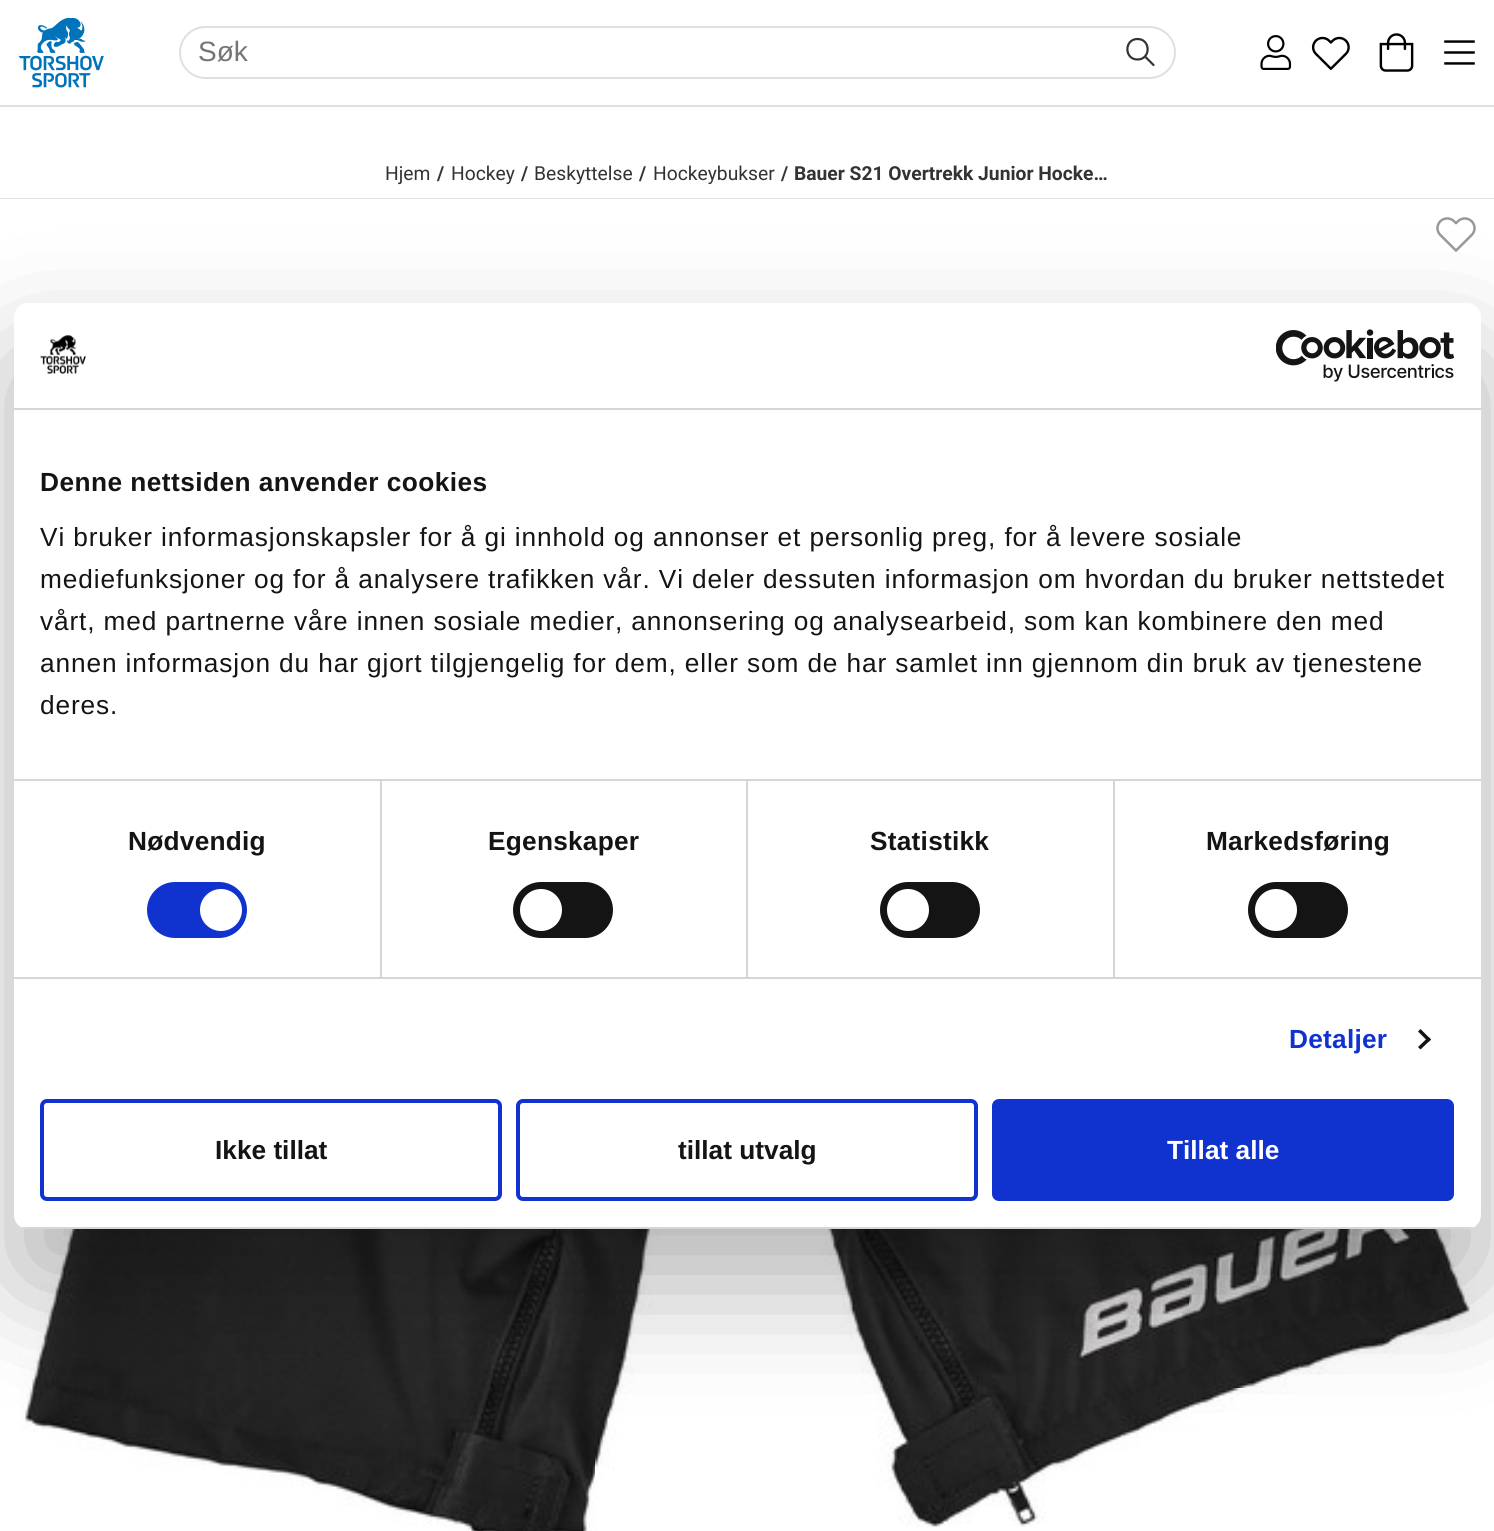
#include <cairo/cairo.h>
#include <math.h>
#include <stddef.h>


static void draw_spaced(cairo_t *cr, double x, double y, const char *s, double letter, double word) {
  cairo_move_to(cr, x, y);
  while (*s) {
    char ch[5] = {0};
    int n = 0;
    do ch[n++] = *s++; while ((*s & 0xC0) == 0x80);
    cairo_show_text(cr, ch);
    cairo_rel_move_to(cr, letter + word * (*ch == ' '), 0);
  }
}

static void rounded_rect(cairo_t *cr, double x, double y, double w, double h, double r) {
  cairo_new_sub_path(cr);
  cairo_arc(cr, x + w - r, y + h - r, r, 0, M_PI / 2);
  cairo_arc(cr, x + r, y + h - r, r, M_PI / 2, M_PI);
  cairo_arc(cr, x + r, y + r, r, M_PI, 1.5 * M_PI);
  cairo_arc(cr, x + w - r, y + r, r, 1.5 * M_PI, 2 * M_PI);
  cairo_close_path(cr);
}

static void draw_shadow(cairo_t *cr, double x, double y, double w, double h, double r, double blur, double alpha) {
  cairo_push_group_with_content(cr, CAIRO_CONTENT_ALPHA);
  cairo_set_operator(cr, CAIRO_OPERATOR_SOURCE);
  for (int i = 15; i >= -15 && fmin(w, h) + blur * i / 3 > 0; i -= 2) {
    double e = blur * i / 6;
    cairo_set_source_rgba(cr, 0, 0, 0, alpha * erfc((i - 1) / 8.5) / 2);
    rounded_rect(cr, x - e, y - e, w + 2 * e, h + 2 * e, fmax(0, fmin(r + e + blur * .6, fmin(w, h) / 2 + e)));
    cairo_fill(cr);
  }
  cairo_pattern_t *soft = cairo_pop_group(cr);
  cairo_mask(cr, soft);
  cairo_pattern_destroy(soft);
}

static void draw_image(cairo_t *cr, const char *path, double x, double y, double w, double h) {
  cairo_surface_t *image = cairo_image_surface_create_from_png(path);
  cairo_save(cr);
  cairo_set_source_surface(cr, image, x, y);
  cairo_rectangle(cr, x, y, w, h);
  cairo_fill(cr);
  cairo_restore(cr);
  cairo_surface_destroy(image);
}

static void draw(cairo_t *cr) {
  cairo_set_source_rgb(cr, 1, 1, 1);
  cairo_paint(cr);
  cairo_set_source_rgb(cr, 224 / 255.0, 224 / 255.0, 224 / 255.0);
  cairo_rectangle(cr, 0, 105, 1494, 2);
  cairo_fill(cr);
  draw_image(cr, "images/1.png", 18, 18, 86, 70);
  rounded_rect(cr, 180, 27, 995, 51, 25.5);
  cairo_stroke(cr);
  cairo_new_path(cr);
  cairo_move_to(cr, 1137.5, 59.5);
  cairo_curve_to(cr, 1151, 59.5, 1151, 39, 1137.5, 39);
  cairo_curve_to(cr, 1124, 39, 1124, 59.5, 1137.5, 59.5);
  cairo_close_path(cr);
  cairo_move_to(cr, 1153.5, 65);
  cairo_line_to(cr, 1145, 56.5);
  cairo_set_source_rgb(cr, 51 / 255.0, 51 / 255.0, 51 / 255.0);
  cairo_set_line_width(cr, 2.2);
  cairo_set_line_cap(cr, CAIRO_LINE_CAP_ROUND);
  cairo_set_line_join(cr, CAIRO_LINE_JOIN_ROUND);
  cairo_stroke(cr);
  draw_image(cr, "images/2.png", 1260, 35, 32, 35);
  draw_image(cr, "images/3.png", 1311, 36, 39, 34);
  draw_image(cr, "images/4.png", 1379, 33, 35, 39);
  draw_image(cr, "images/5.png", 1444, 40, 31, 25);
  cairo_set_source_rgb(cr, 224 / 255.0, 224 / 255.0, 224 / 255.0);
  cairo_rectangle(cr, 0, 198, 1494, 1);
  cairo_fill(cr);
  draw_image(cr, "images/6.png", 0, 199, 1494, 1332);
  draw_image(cr, "images/7.png", 1436, 217, 40, 35);
  cairo_set_source_rgb(cr, 0, 0, 0);
  draw_shadow(cr, 14, 359, 1467, 926, 14, 59.5, 0.3);
  cairo_set_source_rgb(cr, 1, 1, 1);
  rounded_rect(cr, 14, 303, 1467, 926, 14);
  cairo_fill(cr);
  cairo_set_source_rgb(cr, 214 / 255.0, 214 / 255.0, 214 / 255.0);
  cairo_rectangle(cr, 14, 408, 1467, 2);
  cairo_fill(cr);
  draw_image(cr, "images/8.png", 40, 334, 46, 40);
  draw_image(cr, "images/9.png", 1276, 329, 178, 53);
  cairo_rectangle(cr, 14, 779, 1467, 2);
  cairo_fill(cr);
  cairo_rectangle(cr, 14, 977, 1467, 2);
  cairo_fill(cr);
  cairo_rectangle(cr, 380, 781, 2, 196);
  cairo_fill(cr);
  cairo_set_source_rgb(cr, 16 / 255.0, 50 / 255.0, 207 / 255.0);
  rounded_rect(cr, 147, 882, 100, 56, 28);
  cairo_fill(cr);
  cairo_set_source_rgb(cr, 1, 1, 1);
  cairo_arc(cr, 221, 910, 21, 0, 2 * M_PI);
  cairo_fill(cr);
  cairo_set_source_rgb(cr, 214 / 255.0, 214 / 255.0, 214 / 255.0);
  cairo_rectangle(cr, 746, 781, 2, 196);
  cairo_fill(cr);
  cairo_set_source_rgb(cr, 20 / 255.0, 20 / 255.0, 20 / 255.0);
  rounded_rect(cr, 513, 882, 100, 56, 28);
  cairo_fill(cr);
  cairo_set_source_rgb(cr, 1, 1, 1);
  cairo_arc(cr, 541, 910, 21, 0, 2 * M_PI);
  cairo_fill(cr);
  cairo_set_source_rgb(cr, 214 / 255.0, 214 / 255.0, 214 / 255.0);
  cairo_rectangle(cr, 1113, 781, 2, 196);
  cairo_fill(cr);
  cairo_set_source_rgb(cr, 20 / 255.0, 20 / 255.0, 20 / 255.0);
  rounded_rect(cr, 880, 882, 100, 56, 28);
  cairo_fill(cr);
  cairo_set_source_rgb(cr, 1, 1, 1);
  cairo_arc(cr, 908, 910, 21, 0, 2 * M_PI);
  cairo_fill(cr);
  cairo_set_source_rgb(cr, 20 / 255.0, 20 / 255.0, 20 / 255.0);
  rounded_rect(cr, 1248, 882, 100, 56, 28);
  cairo_fill(cr);
  cairo_set_source_rgb(cr, 1, 1, 1);
  cairo_arc(cr, 1276, 910, 21, 0, 2 * M_PI);
  cairo_fill(cr);
  cairo_set_source_rgb(cr, 20 / 255.0, 20 / 255.0, 20 / 255.0);
  cairo_new_path(cr);
  cairo_move_to(cr, 1420.5, 1029);
  cairo_line_to(cr, 1431, 1039.5);
  cairo_line_to(cr, 1428.5, 1042);
  cairo_line_to(cr, 1418, 1031.5);
  cairo_close_path(cr);
  cairo_fill(cr);
  cairo_new_path(cr);
  cairo_move_to(cr, 1428.5, 1037);
  cairo_line_to(cr, 1431, 1039.5);
  cairo_line_to(cr, 1420.5, 1049.5);
  cairo_line_to(cr, 1418, 1047);
  cairo_close_path(cr);
  cairo_fill(cr);
  cairo_save(cr);
  rounded_rect(cr, 14, 303, 1467, 926, 14);
  cairo_clip(cr);
  cairo_set_source_rgb(cr, 214 / 255.0, 214 / 255.0, 214 / 255.0);
  cairo_rectangle(cr, 14, 1227, 1467, 2);
  cairo_fill(cr);
  cairo_restore(cr);
  rounded_rect(cr, 42, 1101, 458, 98, 5);
  cairo_set_source_rgb(cr, 16 / 255.0, 50 / 255.0, 207 / 255.0);
  cairo_set_line_width(cr, 4);
  cairo_set_line_cap(cr, CAIRO_LINE_CAP_BUTT);
  cairo_set_line_join(cr, CAIRO_LINE_JOIN_MITER);
  cairo_stroke(cr);
  rounded_rect(cr, 518, 1101, 458, 98, 5);
  cairo_stroke(cr);
  rounded_rect(cr, 994, 1101, 458, 98, 5);
  cairo_fill_preserve(cr);
  cairo_stroke(cr);
  cairo_select_font_face(cr, "Liberation Sans", CAIRO_FONT_SLANT_NORMAL, CAIRO_FONT_WEIGHT_NORMAL);
  cairo_set_font_size(cr, 28);
  cairo_set_source_rgb(cr, 117 / 255.0, 117 / 255.0, 117 / 255.0);
  cairo_move_to(cr, 198, 61);
  cairo_show_text(cr, "Søk");
  cairo_select_font_face(cr, "Roboto", CAIRO_FONT_SLANT_NORMAL, CAIRO_FONT_WEIGHT_NORMAL);
  cairo_set_font_size(cr, 19.25);
  cairo_set_source_rgb(cr, 51 / 255.0, 51 / 255.0, 51 / 255.0);
  cairo_move_to(cr, 385, 180);
  cairo_show_text(cr, "Hjem");
  cairo_select_font_face(cr, "Roboto", CAIRO_FONT_SLANT_NORMAL, CAIRO_FONT_WEIGHT_BOLD);
  cairo_move_to(cr, 437, 180);
  cairo_show_text(cr, "/");
  cairo_select_font_face(cr, "Roboto", CAIRO_FONT_SLANT_NORMAL, CAIRO_FONT_WEIGHT_NORMAL);
  cairo_move_to(cr, 451, 180);
  cairo_show_text(cr, "Hockey");
  cairo_select_font_face(cr, "Roboto", CAIRO_FONT_SLANT_NORMAL, CAIRO_FONT_WEIGHT_BOLD);
  cairo_move_to(cr, 521, 180);
  cairo_show_text(cr, "/");
  cairo_select_font_face(cr, "Roboto", CAIRO_FONT_SLANT_NORMAL, CAIRO_FONT_WEIGHT_NORMAL);
  cairo_move_to(cr, 534, 180);
  cairo_show_text(cr, "Beskyttelse");
  cairo_select_font_face(cr, "Roboto", CAIRO_FONT_SLANT_NORMAL, CAIRO_FONT_WEIGHT_BOLD);
  cairo_move_to(cr, 639, 180);
  cairo_show_text(cr, "/");
  cairo_select_font_face(cr, "Roboto", CAIRO_FONT_SLANT_NORMAL, CAIRO_FONT_WEIGHT_NORMAL);
  cairo_move_to(cr, 653, 180);
  cairo_show_text(cr, "Hockeybukser");
  cairo_select_font_face(cr, "Roboto", CAIRO_FONT_SLANT_NORMAL, CAIRO_FONT_WEIGHT_BOLD);
  cairo_move_to(cr, 781, 180);
  cairo_show_text(cr, "/");
  cairo_move_to(cr, 794, 180);
  cairo_show_text(cr, "Bauer S21 Overtrekk Junior Hocke…");
  cairo_select_font_face(cr, "Liberation Sans", CAIRO_FONT_SLANT_NORMAL, CAIRO_FONT_WEIGHT_BOLD);
  cairo_set_font_size(cr, 26.25);
  cairo_set_source_rgb(cr, 20 / 255.0, 20 / 255.0, 20 / 255.0);
  draw_spaced(cr, 40, 491, "Denne nettsiden anvender cookies", 0.45, 0);
  cairo_select_font_face(cr, "Liberation Sans", CAIRO_FONT_SLANT_NORMAL, CAIRO_FONT_WEIGHT_NORMAL);
  draw_spaced(cr, 40, 546, "Vi bruker informasjonskapsler for å gi innhold og annonser et personlig preg, for å levere sosiale", 0.88, 0);
  draw_spaced(cr, 40, 588, "mediefunksjoner og for å analysere trafikken vår. Vi deler dessuten informasjon om hvordan du bruker nettstedet", 0.88, 0);
  draw_spaced(cr, 40, 630, "vårt, med partnerne våre innen sosiale medier, annonsering og analysearbeid, som kan kombinere den med", 0.88, 0);
  draw_spaced(cr, 40, 672, "annen informasjon du har gjort tilgjengelig for dem, eller som de har samlet inn gjennom din bruk av tjenestene", 0.88, 0);
  draw_spaced(cr, 40, 714, "deres.", 0.88, 0);
  cairo_select_font_face(cr, "Liberation Sans", CAIRO_FONT_SLANT_NORMAL, CAIRO_FONT_WEIGHT_BOLD);
  draw_spaced(cr, 128, 850, "Nødvendig", 0.25, 0);
  draw_spaced(cr, 488, 850, "Egenskaper", 0.25, 0);
  draw_spaced(cr, 870, 850, "Statistikk", 0.25, 0);
  draw_spaced(cr, 1206, 850, "Markedsføring", 0.25, 0);
  cairo_set_source_rgb(cr, 16 / 255.0, 50 / 255.0, 207 / 255.0);
  draw_spaced(cr, 1289, 1048, "Detaljer", 0.25, 0);
  cairo_set_source_rgb(cr, 20 / 255.0, 20 / 255.0, 20 / 255.0);
  cairo_move_to(cr, 215, 1159);
  cairo_show_text(cr, "Ikke tillat");
  cairo_move_to(cr, 678, 1159);
  cairo_show_text(cr, "tillat utvalg");
  cairo_set_source_rgb(cr, 1, 1, 1);
  cairo_move_to(cr, 1167, 1159);
  cairo_show_text(cr, "Tillat alle");
}

int main(void) {
  cairo_surface_t *surface = cairo_image_surface_create(CAIRO_FORMAT_RGB24, 1494, 1531);
  cairo_t *cr = cairo_create(surface);
  cairo_font_options_t *options = cairo_font_options_create();
  cairo_font_options_set_hint_metrics(options, CAIRO_HINT_METRICS_OFF);
  cairo_font_options_set_hint_style(options, CAIRO_HINT_STYLE_NONE);
  cairo_set_font_options(cr, options);
  cairo_set_miter_limit(cr, 4);
  draw(cr);
  cairo_surface_write_to_png(surface, "out.png");
  cairo_font_options_destroy(options);
  cairo_destroy(cr);
  cairo_surface_destroy(surface);
  return 0;
}
